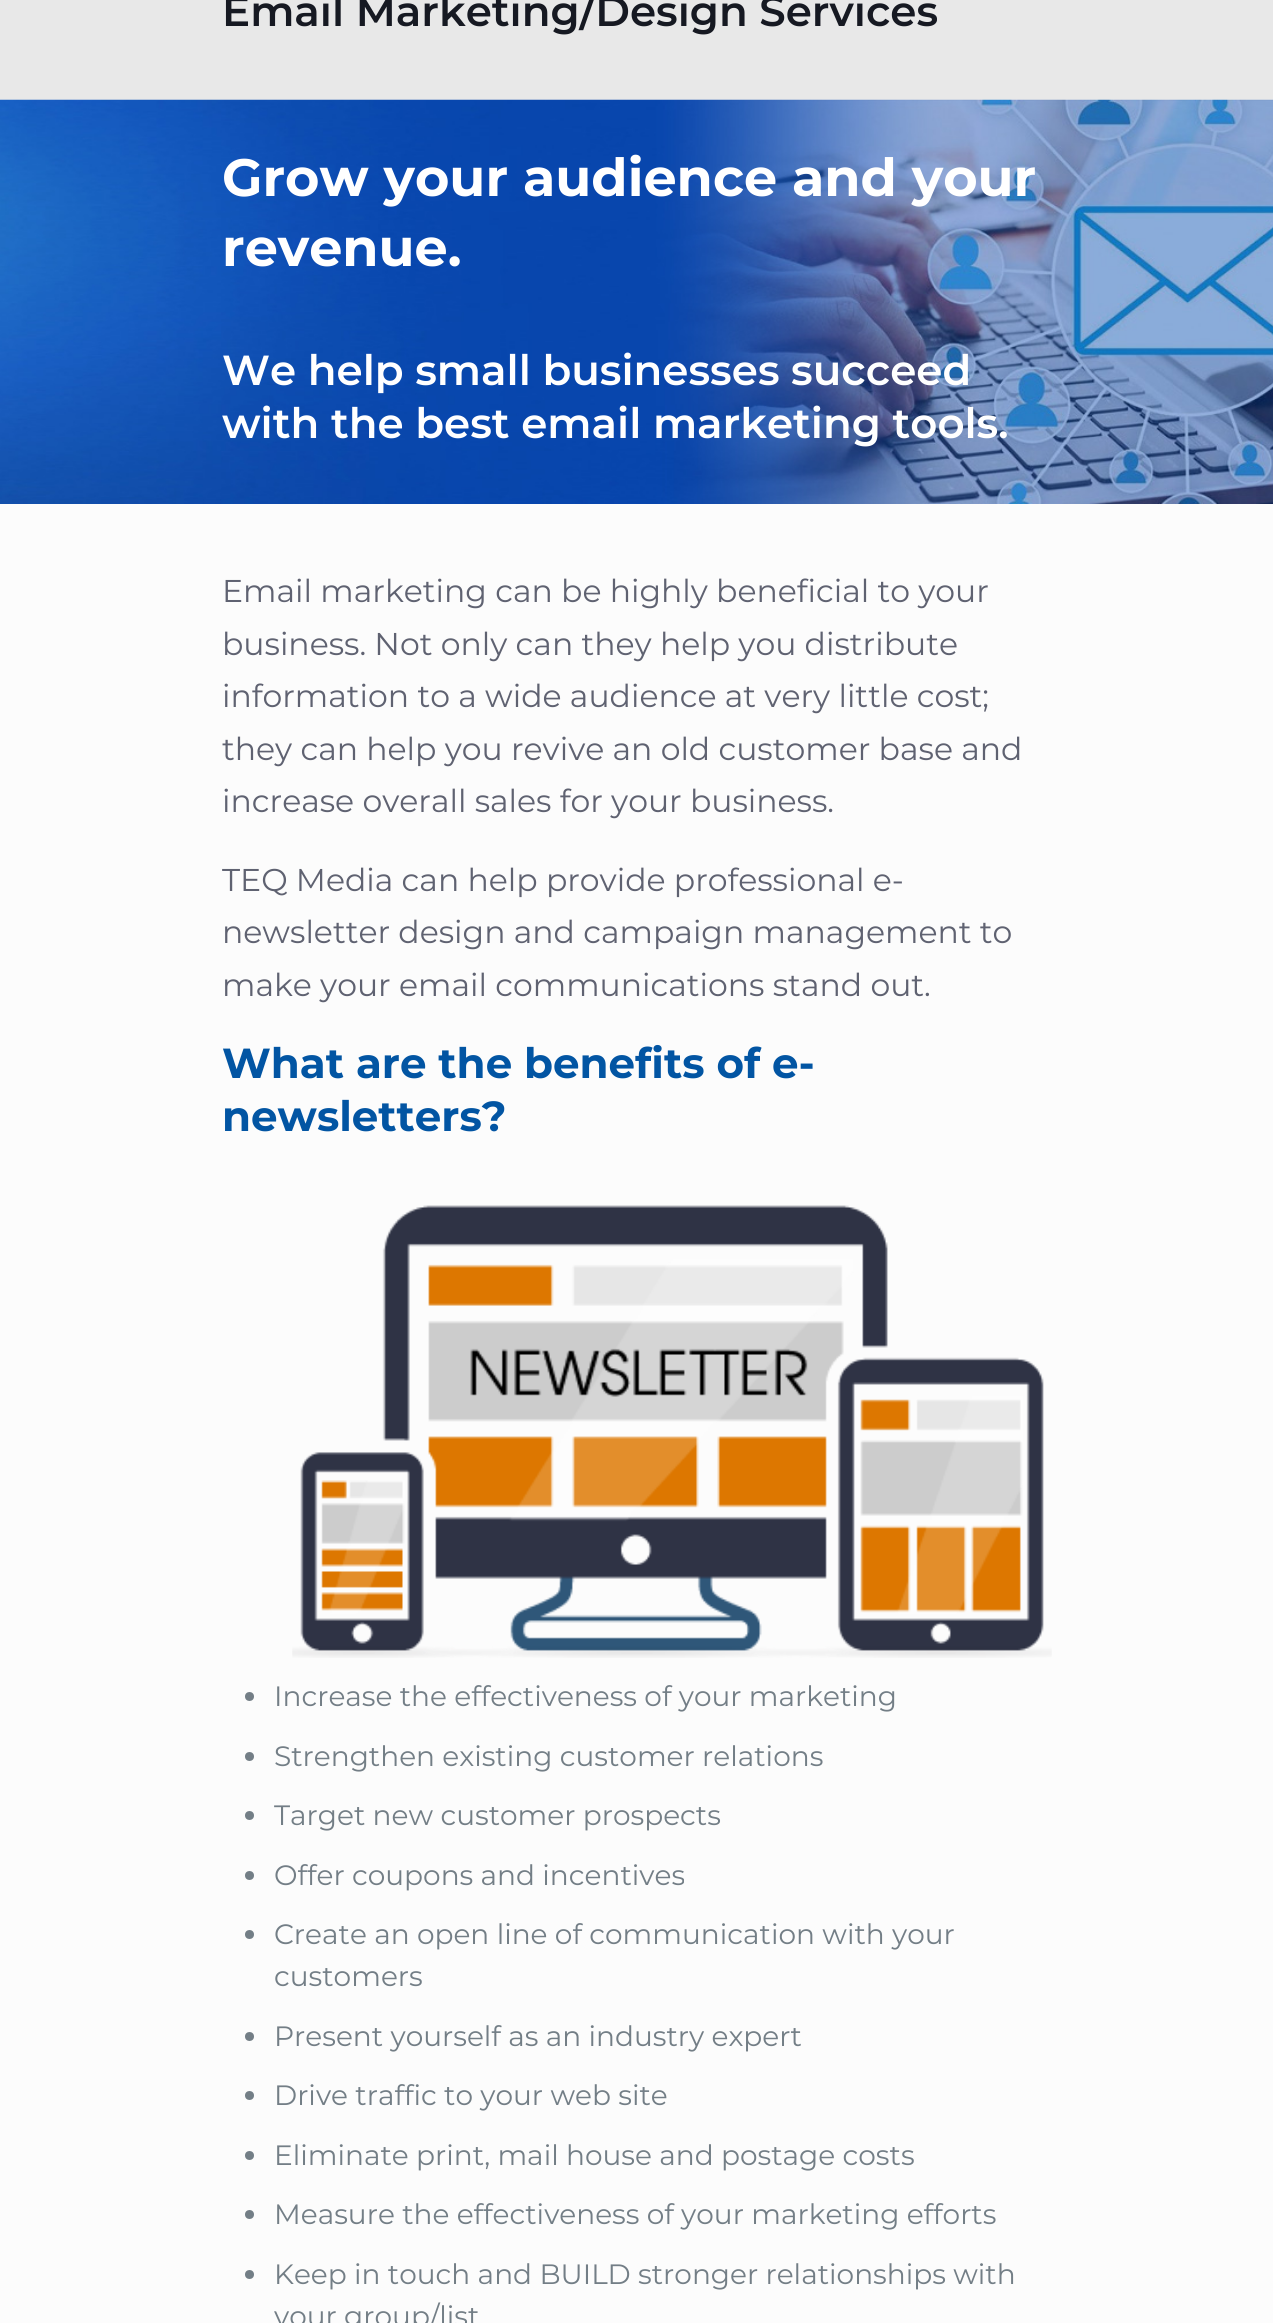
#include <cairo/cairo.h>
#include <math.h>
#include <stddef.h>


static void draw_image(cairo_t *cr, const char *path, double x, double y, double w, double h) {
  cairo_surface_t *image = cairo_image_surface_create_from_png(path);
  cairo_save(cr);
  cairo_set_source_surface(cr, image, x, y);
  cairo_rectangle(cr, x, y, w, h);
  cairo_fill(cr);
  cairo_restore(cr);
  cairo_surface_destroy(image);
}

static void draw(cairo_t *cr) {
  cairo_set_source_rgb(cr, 252 / 255.0, 252 / 255.0, 252 / 255.0);
  cairo_paint(cr);
  cairo_set_source_rgb(cr, 232 / 255.0, 232 / 255.0, 232 / 255.0);
  cairo_rectangle(cr, 0, 0, 1273, 100);
  cairo_fill(cr);
  draw_image(cr, "images/1.png", 0, 99, 1273, 405);
  draw_image(cr, "images/2.png", 292, 1205, 760, 453);
  cairo_set_source_rgb(cr, 115 / 255.0, 126 / 255.0, 134 / 255.0);
  cairo_arc(cr, 249.5, 1696.5, 4.5, 0, 2 * M_PI);
  cairo_fill(cr);
  cairo_arc(cr, 249.5, 1756.5, 4.5, 0, 2 * M_PI);
  cairo_fill(cr);
  cairo_arc(cr, 249.5, 1815.5, 4.5, 0, 2 * M_PI);
  cairo_fill(cr);
  cairo_arc(cr, 249.5, 1875.5, 4.5, 0, 2 * M_PI);
  cairo_fill(cr);
  cairo_arc(cr, 249.5, 1934.5, 4.5, 0, 2 * M_PI);
  cairo_fill(cr);
  cairo_arc(cr, 249.5, 2036.5, 4.5, 0, 2 * M_PI);
  cairo_fill(cr);
  cairo_arc(cr, 249.5, 2095.5, 4.5, 0, 2 * M_PI);
  cairo_fill(cr);
  cairo_arc(cr, 249.5, 2155.5, 4.5, 0, 2 * M_PI);
  cairo_fill(cr);
  cairo_arc(cr, 249.5, 2214.5, 4.5, 0, 2 * M_PI);
  cairo_fill(cr);
  cairo_arc(cr, 249.5, 2274.5, 4.5, 0, 2 * M_PI);
  cairo_fill(cr);
  cairo_select_font_face(cr, "Montserrat SemiBold", CAIRO_FONT_SLANT_NORMAL, CAIRO_FONT_WEIGHT_NORMAL);
  cairo_set_font_size(cr, 42);
  cairo_set_source_rgb(cr, 22 / 255.0, 25 / 255.0, 34 / 255.0);
  cairo_move_to(cr, 222, 26);
  cairo_show_text(cr, "Email Marketing/Design Services");
  cairo_select_font_face(cr, "Montserrat", CAIRO_FONT_SLANT_NORMAL, CAIRO_FONT_WEIGHT_BOLD);
  cairo_set_font_size(cr, 52.5);
  cairo_set_source_rgb(cr, 1, 1, 1);
  cairo_move_to(cr, 222, 196);
  cairo_show_text(cr, "Grow your audience and your");
  cairo_move_to(cr, 222, 266);
  cairo_show_text(cr, "revenue.");
  cairo_select_font_face(cr, "Montserrat SemiBold", CAIRO_FONT_SLANT_NORMAL, CAIRO_FONT_WEIGHT_NORMAL);
  cairo_set_font_size(cr, 42);
  cairo_move_to(cr, 222, 385);
  cairo_show_text(cr, "We help small businesses succeed");
  cairo_move_to(cr, 222, 438);
  cairo_show_text(cr, "with the best email marketing tools.");
  cairo_select_font_face(cr, "Montserrat", CAIRO_FONT_SLANT_NORMAL, CAIRO_FONT_WEIGHT_NORMAL);
  cairo_set_font_size(cr, 31.5);
  cairo_set_source_rgb(cr, 95 / 255.0, 98 / 255.0, 113 / 255.0);
  cairo_move_to(cr, 222, 602);
  cairo_show_text(cr, "Email marketing can be highly beneficial to your");
  cairo_move_to(cr, 222, 655);
  cairo_show_text(cr, "business. Not only can they help you distribute");
  cairo_move_to(cr, 222, 707);
  cairo_show_text(cr, "information to a wide audience at very little cost;");
  cairo_move_to(cr, 222, 760);
  cairo_show_text(cr, "they can help you revive an old customer base and");
  cairo_move_to(cr, 222, 812);
  cairo_show_text(cr, "increase overall sales for your business.");
  cairo_move_to(cr, 222, 891);
  cairo_show_text(cr, "TEQ Media can help provide professional e-");
  cairo_move_to(cr, 222, 943);
  cairo_show_text(cr, "newsletter design and campaign management to");
  cairo_move_to(cr, 222, 996);
  cairo_show_text(cr, "make your email communications stand out.");
  cairo_select_font_face(cr, "Montserrat", CAIRO_FONT_SLANT_NORMAL, CAIRO_FONT_WEIGHT_BOLD);
  cairo_set_font_size(cr, 42);
  cairo_set_source_rgb(cr, 2 / 255.0, 85 / 255.0, 163 / 255.0);
  cairo_move_to(cr, 222, 1078);
  cairo_show_text(cr, "What are the benefits of e-");
  cairo_move_to(cr, 222, 1131);
  cairo_show_text(cr, "newsletters?");
  cairo_select_font_face(cr, "Montserrat", CAIRO_FONT_SLANT_NORMAL, CAIRO_FONT_WEIGHT_NORMAL);
  cairo_set_font_size(cr, 28);
  cairo_set_source_rgb(cr, 115 / 255.0, 126 / 255.0, 134 / 255.0);
  cairo_move_to(cr, 274, 1706);
  cairo_show_text(cr, "Increase the effectiveness of your marketing");
  cairo_move_to(cr, 274, 1766);
  cairo_show_text(cr, "Strengthen existing customer relations");
  cairo_move_to(cr, 274, 1825);
  cairo_show_text(cr, "Target new customer prospects");
  cairo_move_to(cr, 274, 1885);
  cairo_show_text(cr, "Offer coupons and incentives");
  cairo_move_to(cr, 274, 1944);
  cairo_show_text(cr, "Create an open line of communication with your");
  cairo_move_to(cr, 274, 1986);
  cairo_show_text(cr, "customers");
  cairo_move_to(cr, 274, 2046);
  cairo_show_text(cr, "Present yourself as an industry expert");
  cairo_move_to(cr, 274, 2105);
  cairo_show_text(cr, "Drive traffic to your web site");
  cairo_move_to(cr, 274, 2165);
  cairo_show_text(cr, "Eliminate print, mail house and postage costs");
  cairo_move_to(cr, 274, 2224);
  cairo_show_text(cr, "Measure the effectiveness of your marketing efforts");
  cairo_move_to(cr, 274, 2284);
  cairo_show_text(cr, "Keep in touch and BUILD stronger relationships with");
  cairo_move_to(cr, 274, 2326);
  cairo_show_text(cr, "your group/list");
}

int main(void) {
  cairo_surface_t *surface = cairo_image_surface_create(CAIRO_FORMAT_RGB24, 1273, 2323);
  cairo_t *cr = cairo_create(surface);
  cairo_font_options_t *options = cairo_font_options_create();
  cairo_font_options_set_hint_metrics(options, CAIRO_HINT_METRICS_OFF);
  cairo_font_options_set_hint_style(options, CAIRO_HINT_STYLE_NONE);
  cairo_set_font_options(cr, options);
  cairo_set_miter_limit(cr, 4);
  draw(cr);
  cairo_surface_write_to_png(surface, "out.png");
  cairo_font_options_destroy(options);
  cairo_destroy(cr);
  cairo_surface_destroy(surface);
  return 0;
}
